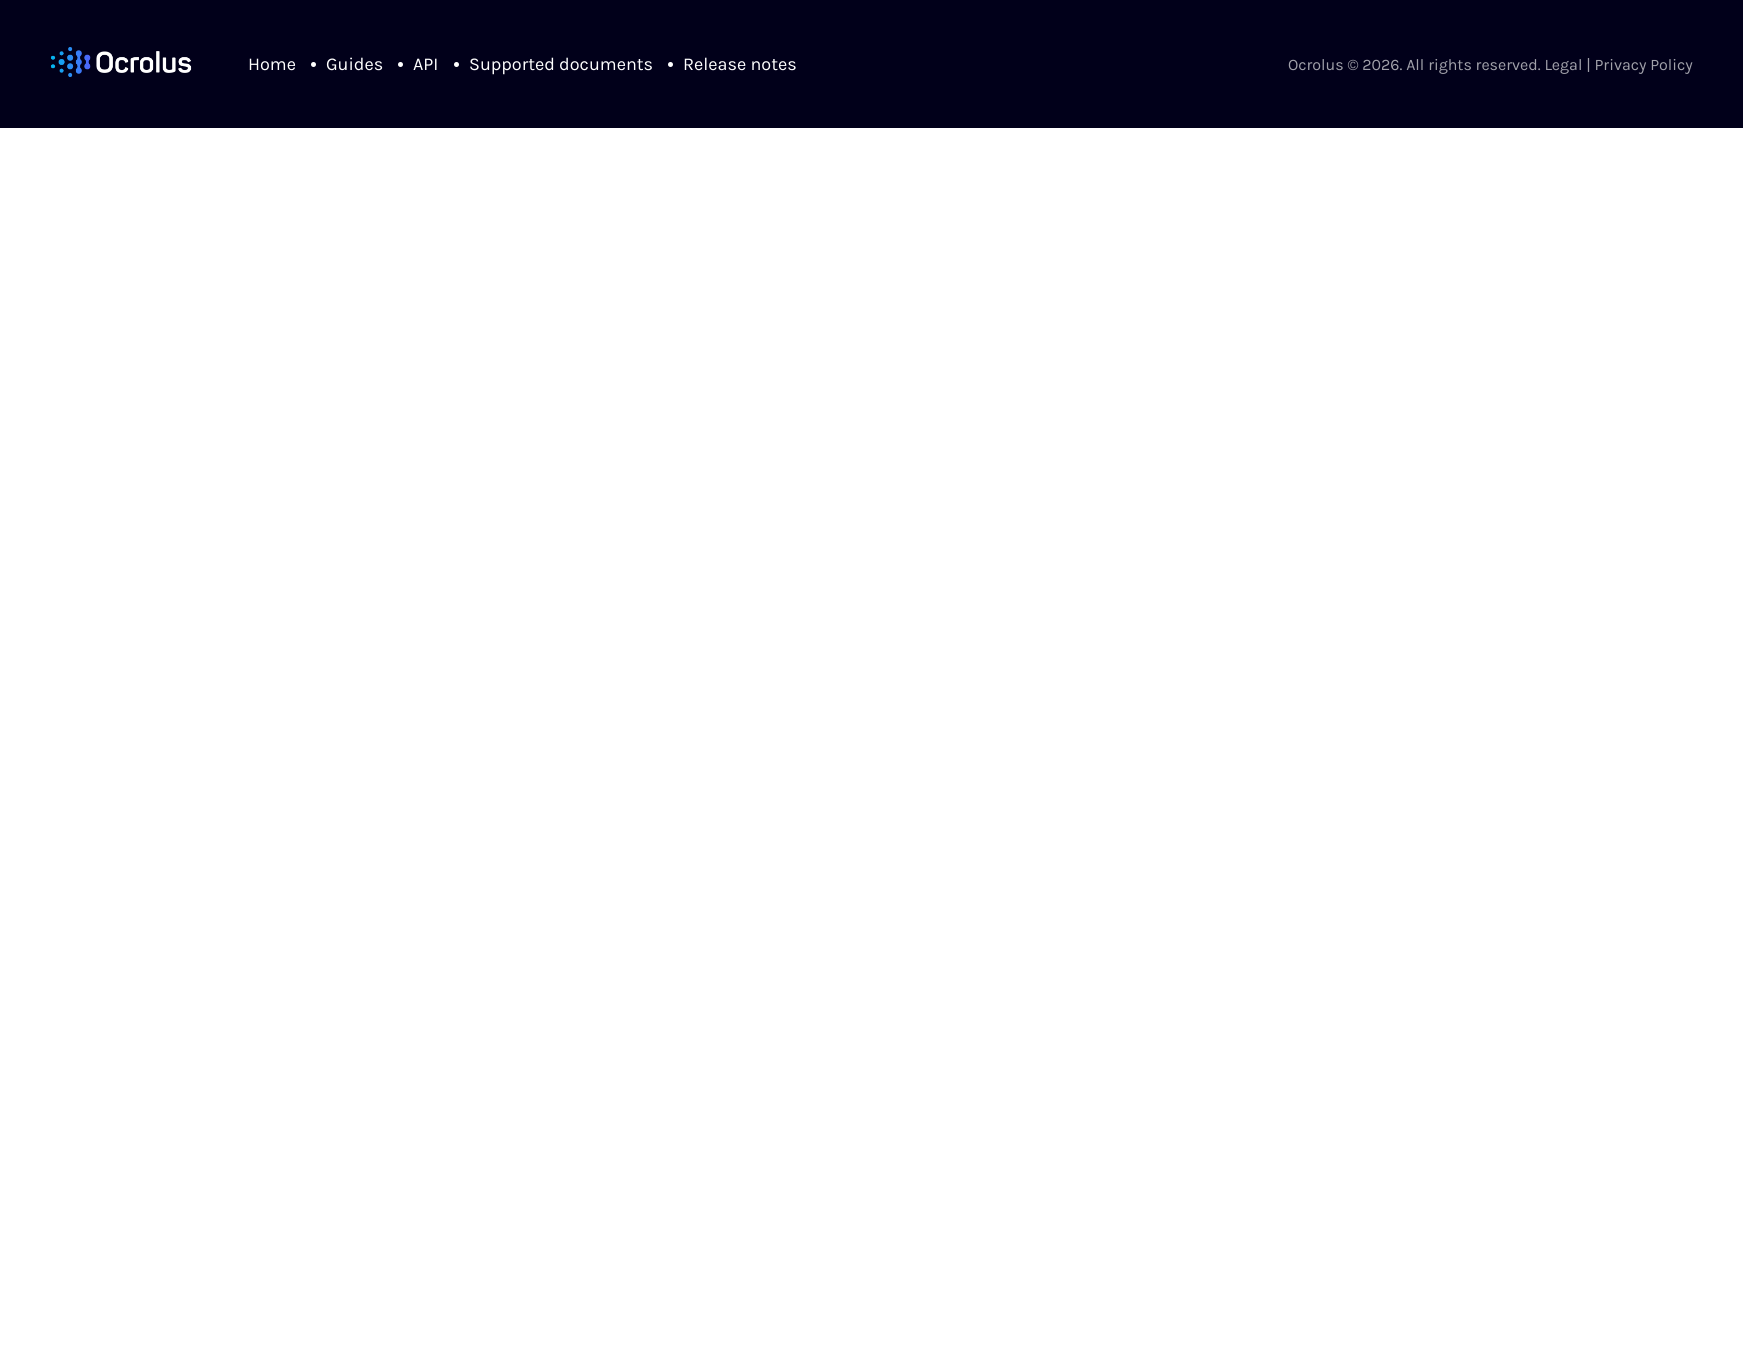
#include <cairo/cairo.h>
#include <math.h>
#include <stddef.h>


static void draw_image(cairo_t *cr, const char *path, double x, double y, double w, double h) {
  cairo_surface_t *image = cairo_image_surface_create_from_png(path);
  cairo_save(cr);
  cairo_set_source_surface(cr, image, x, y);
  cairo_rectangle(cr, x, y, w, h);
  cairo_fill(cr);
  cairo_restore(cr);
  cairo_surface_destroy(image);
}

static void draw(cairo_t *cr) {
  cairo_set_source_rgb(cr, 1, 1, 1);
  cairo_paint(cr);
  cairo_set_source_rgb(cr, 1 / 255.0, 0, 26 / 255.0);
  cairo_rectangle(cr, 0, 0, 1743, 128);
  cairo_fill(cr);
  draw_image(cr, "images/1.png", 50, 47, 142, 30);
  cairo_set_source_rgb(cr, 1, 1, 1);
  cairo_arc(cr, 313.5, 64.5, 2.5, 0, 2 * M_PI);
  cairo_fill(cr);
  cairo_arc(cr, 400.5, 64.5, 2.5, 0, 2 * M_PI);
  cairo_fill(cr);
  cairo_arc(cr, 456.5, 64.5, 2.5, 0, 2 * M_PI);
  cairo_fill(cr);
  cairo_arc(cr, 670.5, 64.5, 2.5, 0, 2 * M_PI);
  cairo_fill(cr);
  cairo_select_font_face(cr, "Karla", CAIRO_FONT_SLANT_NORMAL, CAIRO_FONT_WEIGHT_NORMAL);
  cairo_set_font_size(cr, 18);
  cairo_move_to(cr, 248, 70);
  cairo_show_text(cr, "Home");
  cairo_move_to(cr, 326, 70);
  cairo_show_text(cr, "Guides");
  cairo_move_to(cr, 413, 70);
  cairo_show_text(cr, "API");
  cairo_move_to(cr, 469, 70);
  cairo_show_text(cr, "Supported documents");
  cairo_move_to(cr, 683, 70);
  cairo_show_text(cr, "Release notes");
  cairo_set_font_size(cr, 16);
  cairo_set_source_rgb(cr, 161 / 255.0, 161 / 255.0, 170 / 255.0);
  cairo_move_to(cr, 1288, 70);
  cairo_show_text(cr, "Ocrolus © 2026. All rights reserved. Legal | Privacy Policy");
}

int main(void) {
  cairo_surface_t *surface = cairo_image_surface_create(CAIRO_FORMAT_RGB24, 1743, 1354);
  cairo_t *cr = cairo_create(surface);
  cairo_font_options_t *options = cairo_font_options_create();
  cairo_font_options_set_hint_metrics(options, CAIRO_HINT_METRICS_OFF);
  cairo_font_options_set_hint_style(options, CAIRO_HINT_STYLE_NONE);
  cairo_set_font_options(cr, options);
  cairo_set_miter_limit(cr, 4);
  draw(cr);
  cairo_surface_write_to_png(surface, "out.png");
  cairo_font_options_destroy(options);
  cairo_destroy(cr);
  cairo_surface_destroy(surface);
  return 0;
}
